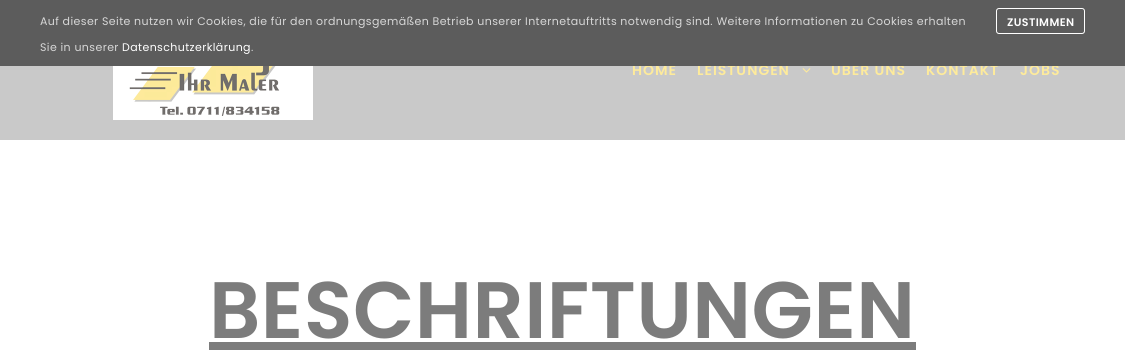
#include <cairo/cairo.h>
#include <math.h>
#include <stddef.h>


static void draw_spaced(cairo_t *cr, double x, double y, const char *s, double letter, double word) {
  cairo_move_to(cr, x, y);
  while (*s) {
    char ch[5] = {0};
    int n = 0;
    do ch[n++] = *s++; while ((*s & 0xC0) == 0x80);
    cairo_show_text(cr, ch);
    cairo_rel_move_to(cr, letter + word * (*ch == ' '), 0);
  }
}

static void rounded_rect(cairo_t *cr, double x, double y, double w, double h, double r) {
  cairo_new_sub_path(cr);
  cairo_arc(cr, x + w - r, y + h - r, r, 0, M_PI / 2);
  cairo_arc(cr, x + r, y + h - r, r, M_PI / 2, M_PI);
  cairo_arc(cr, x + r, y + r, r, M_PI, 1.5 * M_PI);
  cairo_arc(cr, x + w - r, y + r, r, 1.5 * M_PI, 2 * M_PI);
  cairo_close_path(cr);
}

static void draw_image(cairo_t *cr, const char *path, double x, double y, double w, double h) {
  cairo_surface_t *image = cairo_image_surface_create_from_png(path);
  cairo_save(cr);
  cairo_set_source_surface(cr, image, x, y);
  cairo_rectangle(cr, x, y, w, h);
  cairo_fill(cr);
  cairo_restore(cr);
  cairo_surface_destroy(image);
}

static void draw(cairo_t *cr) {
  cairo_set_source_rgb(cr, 1, 1, 1);
  cairo_paint(cr);
  cairo_set_source_rgb(cr, 201 / 255.0, 201 / 255.0, 201 / 255.0);
  cairo_rectangle(cr, 0, 66, 1125, 74);
  cairo_fill(cr);
  draw_image(cr, "images/1.png", 113, 66, 200, 54);
  draw_image(cr, "images/2.png", 802, 68, 9, 5);
  cairo_set_source_rgb(cr, 124 / 255.0, 124 / 255.0, 124 / 255.0);
  cairo_rectangle(cr, 209, 342, 707, 8);
  cairo_fill(cr);
  cairo_select_font_face(cr, "Poppins SemiBold", CAIRO_FONT_SLANT_NORMAL, CAIRO_FONT_WEIGHT_NORMAL);
  cairo_set_font_size(cr, 14);
  cairo_set_source_rgb(cr, 254 / 255.0, 235 / 255.0, 155 / 255.0);
  draw_spaced(cr, 632, 75, "HOME", 1, 0);
  draw_spaced(cr, 697, 75, "LEISTUNGEN", 1, 0);
  draw_spaced(cr, 831, 75, "ÜBER UNS", 1, 0);
  draw_spaced(cr, 926, 75, "KONTAKT", 1, 0);
  draw_spaced(cr, 1020, 75, "JOBS", 1, 0);
  cairo_set_source_rgb(cr, 92 / 255.0, 92 / 255.0, 92 / 255.0);
  cairo_rectangle(cr, 0, 0, 1125, 66);
  cairo_fill(cr);
  rounded_rect(cr, 996.5, 8.5, 88, 25, 2.5);
  cairo_set_source_rgb(cr, 1, 1, 1);
  cairo_set_line_width(cr, 1);
  cairo_stroke(cr);
  cairo_set_font_size(cr, 11);
  draw_spaced(cr, 1007, 26, "ZUSTIMMEN", 0.4, 0);
  cairo_select_font_face(cr, "Poppins", CAIRO_FONT_SLANT_NORMAL, CAIRO_FONT_WEIGHT_NORMAL);
  cairo_set_source_rgb(cr, 215 / 255.0, 215 / 255.0, 215 / 255.0);
  draw_spaced(cr, 251, 51, ".", 0.4, 0);
  cairo_set_source_rgb(cr, 1, 1, 1);
  draw_spaced(cr, 122, 51, "Datenschutzerklärung", 0.4, 0);
  cairo_set_source_rgb(cr, 215 / 255.0, 215 / 255.0, 215 / 255.0);
  draw_spaced(cr, 40, 51, "Sie in unserer", 0.4, 0);
  draw_spaced(cr, 40, 25, "Auf dieser Seite nutzen wir Cookies, die für den ordnungsgemäßen Betrieb unserer Internetauftritts notwendig sind. Weitere Informationen zu Cookies erhalten", 0.4, 0);
  cairo_select_font_face(cr, "Poppins SemiBold", CAIRO_FONT_SLANT_NORMAL, CAIRO_FONT_WEIGHT_NORMAL);
  cairo_set_font_size(cr, 80);
  cairo_set_source_rgb(cr, 124 / 255.0, 124 / 255.0, 124 / 255.0);
  draw_spaced(cr, 209, 338, "BESCHRIFTUNGEN", 0.4, 0);
}

int main(void) {
  cairo_surface_t *surface = cairo_image_surface_create(CAIRO_FORMAT_RGB24, 1125, 363);
  cairo_t *cr = cairo_create(surface);
  cairo_font_options_t *options = cairo_font_options_create();
  cairo_font_options_set_hint_metrics(options, CAIRO_HINT_METRICS_OFF);
  cairo_font_options_set_hint_style(options, CAIRO_HINT_STYLE_NONE);
  cairo_set_font_options(cr, options);
  cairo_set_miter_limit(cr, 4);
  draw(cr);
  cairo_surface_write_to_png(surface, "out.png");
  cairo_font_options_destroy(options);
  cairo_destroy(cr);
  cairo_surface_destroy(surface);
  return 0;
}
